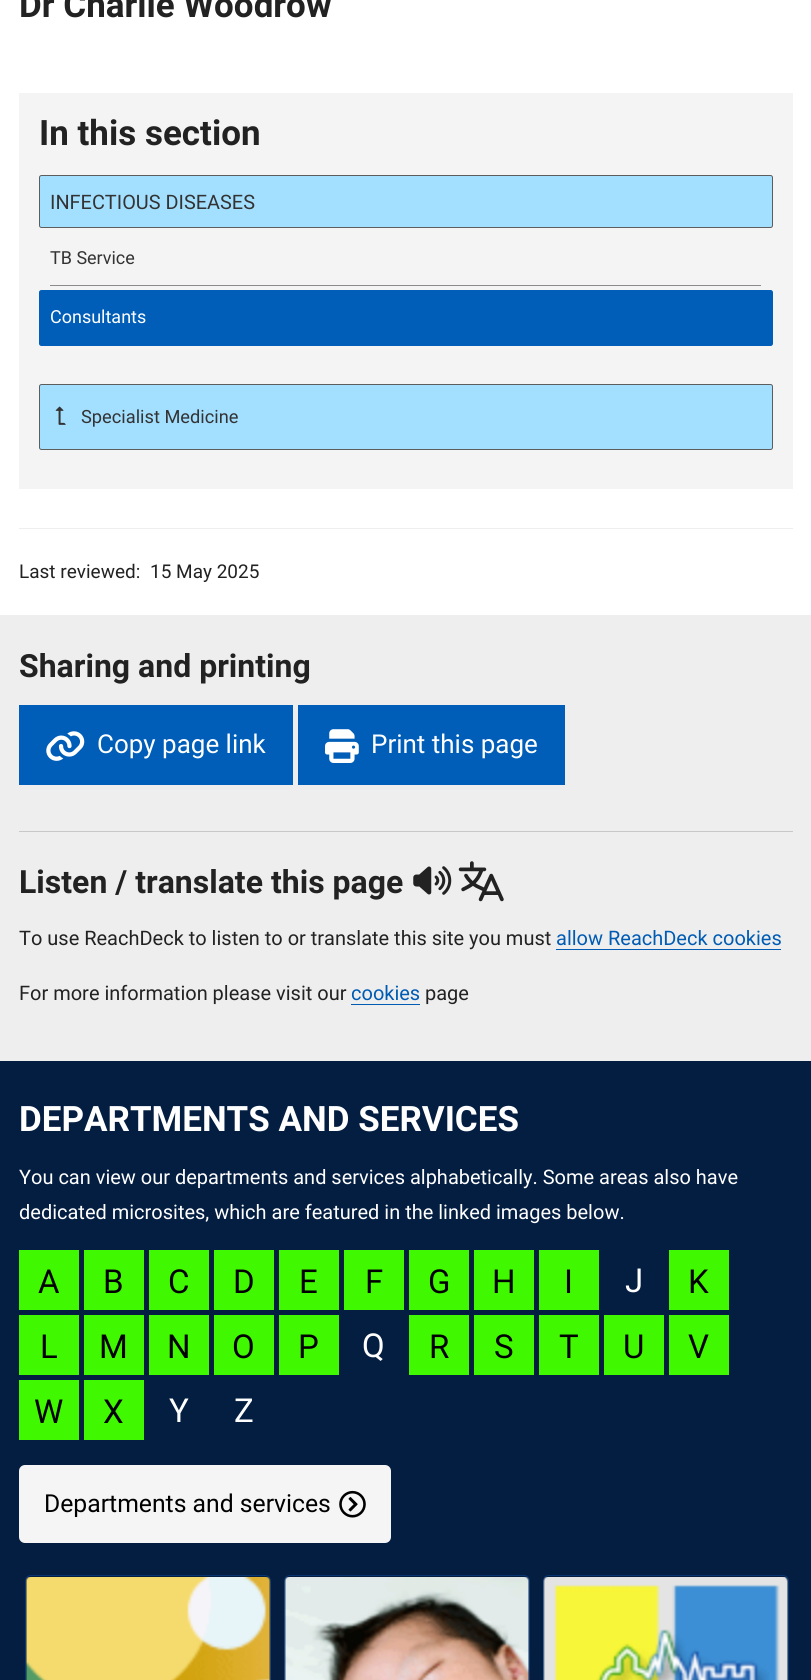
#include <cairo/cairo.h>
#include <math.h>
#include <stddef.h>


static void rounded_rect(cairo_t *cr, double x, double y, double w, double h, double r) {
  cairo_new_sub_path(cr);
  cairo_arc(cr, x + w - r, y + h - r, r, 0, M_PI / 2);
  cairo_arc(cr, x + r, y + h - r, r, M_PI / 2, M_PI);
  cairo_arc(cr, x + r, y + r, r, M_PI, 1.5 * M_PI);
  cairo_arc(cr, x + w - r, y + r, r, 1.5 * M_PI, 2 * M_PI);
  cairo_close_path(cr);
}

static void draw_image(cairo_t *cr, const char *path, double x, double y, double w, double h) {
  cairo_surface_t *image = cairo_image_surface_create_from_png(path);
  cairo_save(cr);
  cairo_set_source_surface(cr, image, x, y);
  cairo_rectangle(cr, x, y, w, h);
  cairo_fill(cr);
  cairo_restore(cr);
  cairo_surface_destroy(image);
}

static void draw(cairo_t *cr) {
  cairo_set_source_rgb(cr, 1, 1, 1);
  cairo_paint(cr);
  cairo_set_source_rgb(cr, 244 / 255.0, 244 / 255.0, 244 / 255.0);
  cairo_rectangle(cr, 19, 93, 774, 396);
  cairo_fill(cr);
  cairo_set_source_rgb(cr, 163 / 255.0, 223 / 255.0, 1);
  rounded_rect(cr, 39.5, 175.5, 733, 52, 2);
  cairo_fill_preserve(cr);
  cairo_set_source_rgb(cr, 93 / 255.0, 93 / 255.0, 93 / 255.0);
  cairo_set_line_width(cr, 1);
  cairo_stroke(cr);
  cairo_set_source_rgb(cr, 139 / 255.0, 139 / 255.0, 139 / 255.0);
  cairo_rectangle(cr, 50, 285, 711, 1);
  cairo_fill(cr);
  cairo_set_source_rgb(cr, 0, 94 / 255.0, 184 / 255.0);
  rounded_rect(cr, 39.5, 290.5, 733, 55, 2);
  cairo_fill_preserve(cr);
  cairo_stroke(cr);
  cairo_set_source_rgb(cr, 163 / 255.0, 223 / 255.0, 1);
  rounded_rect(cr, 39.5, 384.5, 733, 65, 2);
  cairo_fill_preserve(cr);
  cairo_set_source_rgb(cr, 93 / 255.0, 93 / 255.0, 93 / 255.0);
  cairo_stroke(cr);
  draw_image(cr, "images/1.png", 55, 406, 11, 19);
  cairo_set_source_rgb(cr, 238 / 255.0, 238 / 255.0, 238 / 255.0);
  cairo_rectangle(cr, 19, 528, 774, 1);
  cairo_fill(cr);
  cairo_rectangle(cr, 0, 615, 811, 446);
  cairo_fill(cr);
  cairo_set_source_rgb(cr, 200 / 255.0, 200 / 255.0, 200 / 255.0);
  cairo_rectangle(cr, 19, 831, 774, 1);
  cairo_fill(cr);
  cairo_set_source_rgb(cr, 0, 94 / 255.0, 184 / 255.0);
  cairo_rectangle(cr, 19, 705, 274, 80);
  cairo_fill(cr);
  draw_image(cr, "images/2.png", 46, 731, 39, 30);
  cairo_rectangle(cr, 298, 705, 267, 80);
  cairo_fill(cr);
  draw_image(cr, "images/3.png", 325, 729, 34, 34);
  draw_image(cr, "images/4.png", 413, 866, 39, 29);
  draw_image(cr, "images/5.png", 458, 861, 46, 41);
  cairo_set_source_rgb(cr, 0, 91 / 255.0, 179 / 255.0);
  cairo_rectangle(cr, 556, 949, 225, 1);
  cairo_fill(cr);
  cairo_rectangle(cr, 351, 1004, 69, 1);
  cairo_fill(cr);
  cairo_set_source_rgb(cr, 4 / 255.0, 30 / 255.0, 66 / 255.0);
  cairo_rectangle(cr, 0, 1061, 811, 619);
  cairo_fill(cr);
  cairo_set_source_rgb(cr, 64 / 255.0, 249 / 255.0, 0);
  cairo_rectangle(cr, 19, 1250, 60, 60);
  cairo_fill(cr);
  cairo_rectangle(cr, 84, 1250, 60, 60);
  cairo_fill(cr);
  cairo_rectangle(cr, 149, 1250, 60, 60);
  cairo_fill(cr);
  cairo_rectangle(cr, 214, 1250, 60, 60);
  cairo_fill(cr);
  cairo_rectangle(cr, 279, 1250, 60, 60);
  cairo_fill(cr);
  cairo_rectangle(cr, 344, 1250, 60, 60);
  cairo_fill(cr);
  cairo_rectangle(cr, 409, 1250, 60, 60);
  cairo_fill(cr);
  cairo_rectangle(cr, 474, 1250, 60, 60);
  cairo_fill(cr);
  cairo_rectangle(cr, 539, 1250, 60, 60);
  cairo_fill(cr);
  cairo_rectangle(cr, 669, 1250, 60, 60);
  cairo_fill(cr);
  cairo_rectangle(cr, 19, 1315, 60, 60);
  cairo_fill(cr);
  cairo_rectangle(cr, 84, 1315, 60, 60);
  cairo_fill(cr);
  cairo_rectangle(cr, 149, 1315, 60, 60);
  cairo_fill(cr);
  cairo_rectangle(cr, 214, 1315, 60, 60);
  cairo_fill(cr);
  cairo_rectangle(cr, 279, 1315, 60, 60);
  cairo_fill(cr);
  cairo_rectangle(cr, 409, 1315, 60, 60);
  cairo_fill(cr);
  cairo_rectangle(cr, 474, 1315, 60, 60);
  cairo_fill(cr);
  cairo_rectangle(cr, 539, 1315, 60, 60);
  cairo_fill(cr);
  cairo_rectangle(cr, 604, 1315, 60, 60);
  cairo_fill(cr);
  cairo_rectangle(cr, 669, 1315, 60, 60);
  cairo_fill(cr);
  cairo_rectangle(cr, 19, 1380, 60, 60);
  cairo_fill(cr);
  cairo_rectangle(cr, 84, 1380, 60, 60);
  cairo_fill(cr);
  cairo_set_source_rgb(cr, 245 / 255.0, 245 / 255.0, 245 / 255.0);
  rounded_rect(cr, 19, 1465, 372, 78, 6);
  cairo_fill(cr);
  draw_image(cr, "images/6.png", 339, 1490, 27, 28);
  rounded_rect(cr, 25.5, 1575.5, 245, 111, 5.5);
  cairo_set_source_rgb(cr, 7 / 255.0, 52 / 255.0, 114 / 255.0);
  cairo_stroke(cr);
  draw_image(cr, "images/7.png", 25, 1577, 246, 103);
  rounded_rect(cr, 284.5, 1575.5, 245, 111, 5.5);
  cairo_stroke(cr);
  draw_image(cr, "images/8.png", 284, 1577, 246, 103);
  rounded_rect(cr, 543.5, 1575.5, 245, 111, 5.5);
  cairo_stroke(cr);
  draw_image(cr, "images/9.png", 543, 1577, 245, 103);
  cairo_select_font_face(cr, "Roboto", CAIRO_FONT_SLANT_NORMAL, CAIRO_FONT_WEIGHT_BOLD);
  cairo_set_font_size(cr, 35);
  cairo_set_source_rgb(cr, 34 / 255.0, 34 / 255.0, 34 / 255.0);
  cairo_move_to(cr, 19, 17);
  cairo_show_text(cr, "Dr Charlie Woodrow");
  cairo_move_to(cr, 39, 145);
  cairo_show_text(cr, "In this section");
  cairo_select_font_face(cr, "Roboto", CAIRO_FONT_SLANT_NORMAL, CAIRO_FONT_WEIGHT_NORMAL);
  cairo_set_font_size(cr, 19.9);
  cairo_set_source_rgb(cr, 51 / 255.0, 51 / 255.0, 51 / 255.0);
  cairo_move_to(cr, 50, 209);
  cairo_show_text(cr, "INFECTIOUS DISEASES");
  cairo_set_font_size(cr, 18);
  cairo_move_to(cr, 50, 264);
  cairo_show_text(cr, "TB Service");
  cairo_set_source_rgb(cr, 1, 1, 1);
  cairo_move_to(cr, 50, 323);
  cairo_show_text(cr, "Consultants");
  cairo_set_font_size(cr, 18.25);
  cairo_set_source_rgb(cr, 51 / 255.0, 51 / 255.0, 51 / 255.0);
  cairo_move_to(cr, 81, 423);
  cairo_show_text(cr, "Specialist Medicine");
  cairo_set_font_size(cr, 19);
  cairo_set_source_rgb(cr, 34 / 255.0, 34 / 255.0, 34 / 255.0);
  cairo_move_to(cr, 19, 578);
  cairo_show_text(cr, "Last reviewed:");
  cairo_move_to(cr, 150, 578);
  cairo_show_text(cr, "15 May 2025");
  cairo_select_font_face(cr, "Roboto", CAIRO_FONT_SLANT_NORMAL, CAIRO_FONT_WEIGHT_BOLD);
  cairo_set_font_size(cr, 32);
  cairo_move_to(cr, 19, 677);
  cairo_show_text(cr, "Sharing and printing");
  cairo_select_font_face(cr, "Roboto", CAIRO_FONT_SLANT_NORMAL, CAIRO_FONT_WEIGHT_NORMAL);
  cairo_set_font_size(cr, 26);
  cairo_set_source_rgb(cr, 1, 1, 1);
  cairo_move_to(cr, 97, 753);
  cairo_show_text(cr, "Copy page link");
  cairo_move_to(cr, 371, 753);
  cairo_show_text(cr, "Print this page");
  cairo_select_font_face(cr, "Roboto", CAIRO_FONT_SLANT_NORMAL, CAIRO_FONT_WEIGHT_BOLD);
  cairo_set_font_size(cr, 32);
  cairo_set_source_rgb(cr, 34 / 255.0, 34 / 255.0, 34 / 255.0);
  cairo_move_to(cr, 19, 893);
  cairo_show_text(cr, "Listen / translate this page");
  cairo_select_font_face(cr, "Roboto", CAIRO_FONT_SLANT_NORMAL, CAIRO_FONT_WEIGHT_NORMAL);
  cairo_set_font_size(cr, 20);
  cairo_move_to(cr, 19, 945);
  cairo_show_text(cr, "To use ReachDeck to listen to or translate this site you must");
  cairo_set_source_rgb(cr, 0, 91 / 255.0, 179 / 255.0);
  cairo_move_to(cr, 556, 945);
  cairo_show_text(cr, "allow ReachDeck cookies");
  cairo_set_source_rgb(cr, 34 / 255.0, 34 / 255.0, 34 / 255.0);
  cairo_move_to(cr, 19, 1000);
  cairo_show_text(cr, "For more information please visit our");
  cairo_set_source_rgb(cr, 0, 91 / 255.0, 179 / 255.0);
  cairo_move_to(cr, 351, 1000);
  cairo_show_text(cr, "cookies");
  cairo_set_source_rgb(cr, 34 / 255.0, 34 / 255.0, 34 / 255.0);
  cairo_move_to(cr, 425, 1000);
  cairo_show_text(cr, "page");
  cairo_select_font_face(cr, "Roboto", CAIRO_FONT_SLANT_NORMAL, CAIRO_FONT_WEIGHT_BOLD);
  cairo_set_font_size(cr, 35);
  cairo_set_source_rgb(cr, 1, 1, 1);
  cairo_move_to(cr, 19, 1131);
  cairo_show_text(cr, "DEPARTMENTS AND SERVICES");
  cairo_select_font_face(cr, "Roboto", CAIRO_FONT_SLANT_NORMAL, CAIRO_FONT_WEIGHT_NORMAL);
  cairo_set_font_size(cr, 20);
  cairo_move_to(cr, 19, 1184);
  cairo_show_text(cr, "You can view our departments and services alphabetically. Some areas also have");
  cairo_move_to(cr, 19, 1219);
  cairo_show_text(cr, "dedicated microsites, which are featured in the linked images below.");
  cairo_set_font_size(cr, 33);
  cairo_set_source_rgb(cr, 0, 0, 0);
  cairo_move_to(cr, 38, 1293);
  cairo_show_text(cr, "A");
  cairo_move_to(cr, 103, 1293);
  cairo_show_text(cr, "B");
  cairo_move_to(cr, 168, 1293);
  cairo_show_text(cr, "C");
  cairo_move_to(cr, 233, 1293);
  cairo_show_text(cr, "D");
  cairo_move_to(cr, 299, 1293);
  cairo_show_text(cr, "E");
  cairo_move_to(cr, 365, 1293);
  cairo_show_text(cr, "F");
  cairo_move_to(cr, 428, 1293);
  cairo_show_text(cr, "G");
  cairo_move_to(cr, 492, 1293);
  cairo_show_text(cr, "H");
  cairo_move_to(cr, 564, 1293);
  cairo_show_text(cr, "I");
  cairo_set_source_rgb(cr, 1, 1, 1);
  cairo_move_to(cr, 625, 1292);
  cairo_show_text(cr, "J");
  cairo_set_source_rgb(cr, 0, 0, 0);
  cairo_move_to(cr, 688, 1293);
  cairo_show_text(cr, "K");
  cairo_move_to(cr, 40, 1358);
  cairo_show_text(cr, "L");
  cairo_move_to(cr, 99, 1358);
  cairo_show_text(cr, "M");
  cairo_move_to(cr, 167, 1358);
  cairo_show_text(cr, "N");
  cairo_move_to(cr, 232, 1358);
  cairo_show_text(cr, "O");
  cairo_move_to(cr, 298, 1358);
  cairo_show_text(cr, "P");
  cairo_set_source_rgb(cr, 1, 1, 1);
  cairo_move_to(cr, 362, 1357);
  cairo_show_text(cr, "Q");
  cairo_set_source_rgb(cr, 0, 0, 0);
  cairo_move_to(cr, 429, 1358);
  cairo_show_text(cr, "R");
  cairo_move_to(cr, 494, 1358);
  cairo_show_text(cr, "S");
  cairo_move_to(cr, 559, 1358);
  cairo_show_text(cr, "T");
  cairo_move_to(cr, 623, 1358);
  cairo_show_text(cr, "U");
  cairo_move_to(cr, 688, 1358);
  cairo_show_text(cr, "V");
  cairo_move_to(cr, 34, 1423);
  cairo_show_text(cr, "W");
  cairo_move_to(cr, 103, 1423);
  cairo_show_text(cr, "X");
  cairo_set_source_rgb(cr, 1, 1, 1);
  cairo_move_to(cr, 169, 1422);
  cairo_show_text(cr, "Y");
  cairo_move_to(cr, 234, 1422);
  cairo_show_text(cr, "Z");
  cairo_set_font_size(cr, 24.75);
  cairo_set_source_rgb(cr, 0, 0, 0);
  cairo_move_to(cr, 44, 1512);
  cairo_show_text(cr, "Departments and services");
}

int main(void) {
  cairo_surface_t *surface = cairo_image_surface_create(CAIRO_FORMAT_RGB24, 811, 1680);
  cairo_t *cr = cairo_create(surface);
  cairo_font_options_t *options = cairo_font_options_create();
  cairo_font_options_set_hint_metrics(options, CAIRO_HINT_METRICS_OFF);
  cairo_font_options_set_hint_style(options, CAIRO_HINT_STYLE_NONE);
  cairo_set_font_options(cr, options);
  cairo_set_miter_limit(cr, 4);
  draw(cr);
  cairo_surface_write_to_png(surface, "out.png");
  cairo_font_options_destroy(options);
  cairo_destroy(cr);
  cairo_surface_destroy(surface);
  return 0;
}
